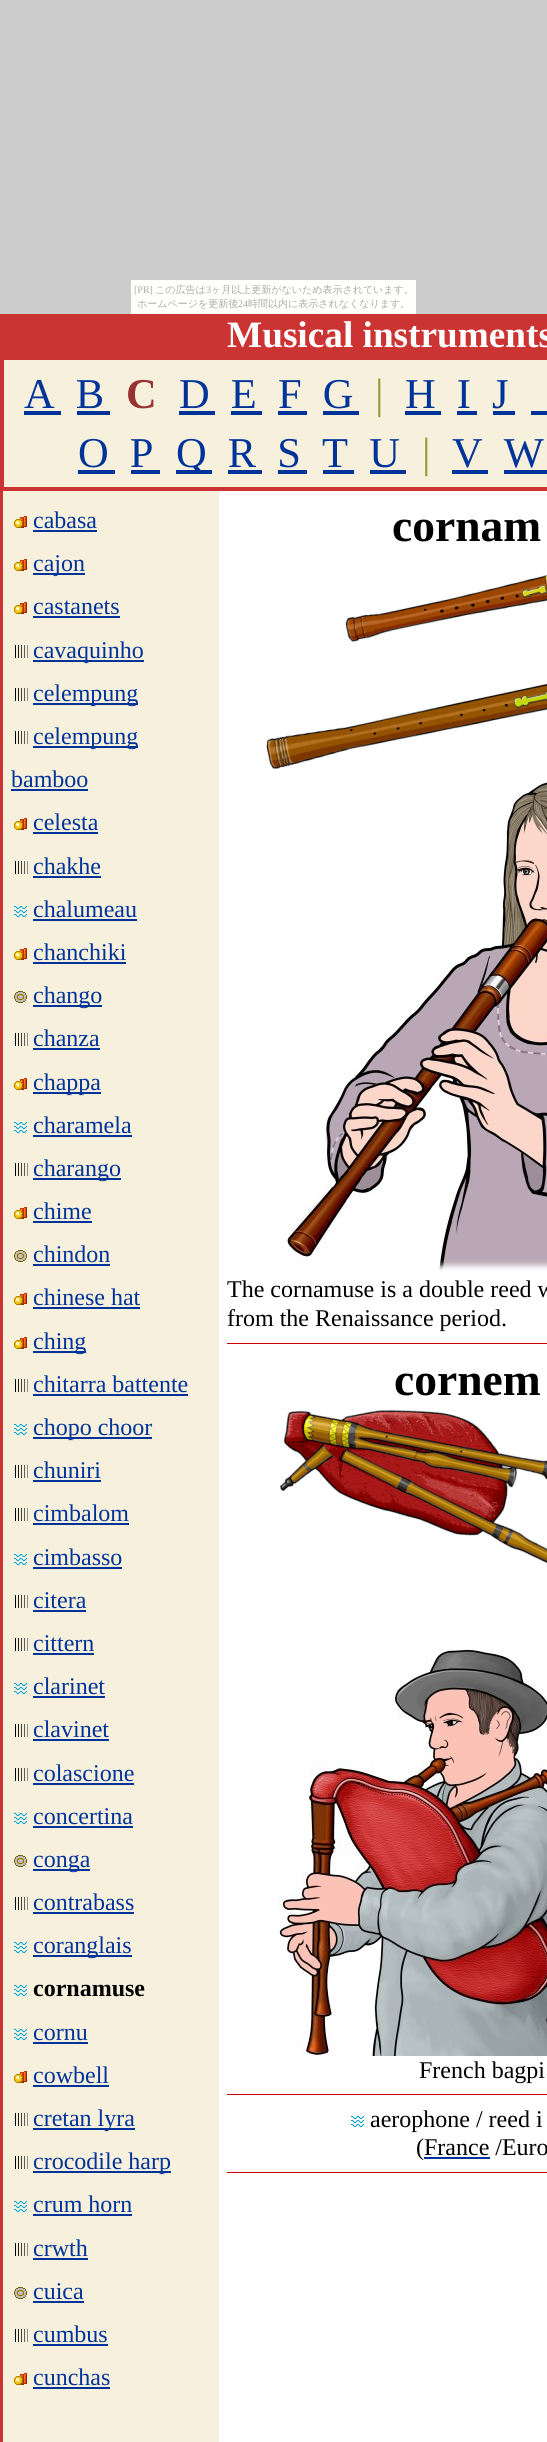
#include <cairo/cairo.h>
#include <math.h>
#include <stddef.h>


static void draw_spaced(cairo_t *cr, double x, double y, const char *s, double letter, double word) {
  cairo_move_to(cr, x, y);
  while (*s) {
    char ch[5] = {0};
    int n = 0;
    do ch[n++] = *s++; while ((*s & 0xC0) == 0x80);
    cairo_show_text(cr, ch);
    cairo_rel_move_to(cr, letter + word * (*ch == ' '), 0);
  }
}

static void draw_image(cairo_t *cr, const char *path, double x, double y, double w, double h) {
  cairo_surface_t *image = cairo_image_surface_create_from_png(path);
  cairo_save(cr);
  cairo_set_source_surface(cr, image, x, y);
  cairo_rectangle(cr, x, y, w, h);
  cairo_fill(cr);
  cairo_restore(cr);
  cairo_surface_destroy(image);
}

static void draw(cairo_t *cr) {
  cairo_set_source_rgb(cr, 204 / 255.0, 204 / 255.0, 204 / 255.0);
  cairo_paint(cr);
  cairo_set_source_rgb(cr, 1, 1, 252 / 255.0);
  cairo_rectangle(cr, 131, 280, 285, 34);
  cairo_fill(cr);
  cairo_set_source_rgb(cr, 204 / 255.0, 51 / 255.0, 51 / 255.0);
  cairo_rectangle(cr, 0, 314, 547, 177);
  cairo_fill(cr);
  cairo_set_source_rgb(cr, 246 / 255.0, 240 / 255.0, 221 / 255.0);
  cairo_rectangle(cr, 4, 360, 543, 127);
  cairo_fill(cr);
  cairo_set_source_rgb(cr, 0, 51 / 255.0, 153 / 255.0);
  cairo_rectangle(cr, 24, 411, 37, 4);
  cairo_fill(cr);
  cairo_rectangle(cr, 77, 411, 33, 4);
  cairo_fill(cr);
  cairo_rectangle(cr, 179, 411, 36, 4);
  cairo_fill(cr);
  cairo_rectangle(cr, 231, 411, 31, 4);
  cairo_fill(cr);
  cairo_rectangle(cr, 278, 411, 29, 4);
  cairo_fill(cr);
  cairo_rectangle(cr, 323, 411, 36, 4);
  cairo_fill(cr);
  cairo_rectangle(cr, 405, 411, 36, 4);
  cairo_fill(cr);
  cairo_rectangle(cr, 457, 411, 20, 4);
  cairo_fill(cr);
  cairo_rectangle(cr, 493, 411, 22, 4);
  cairo_fill(cr);
  cairo_rectangle(cr, 531, 411, 16, 4);
  cairo_fill(cr);
  cairo_rectangle(cr, 78, 470, 37, 4);
  cairo_fill(cr);
  cairo_rectangle(cr, 131, 470, 29, 4);
  cairo_fill(cr);
  cairo_rectangle(cr, 176, 470, 36, 4);
  cairo_fill(cr);
  cairo_rectangle(cr, 228, 470, 34, 4);
  cairo_fill(cr);
  cairo_rectangle(cr, 278, 470, 29, 4);
  cairo_fill(cr);
  cairo_rectangle(cr, 323, 470, 31, 4);
  cairo_fill(cr);
  cairo_rectangle(cr, 370, 470, 36, 4);
  cairo_fill(cr);
  cairo_rectangle(cr, 452, 470, 36, 4);
  cairo_fill(cr);
  cairo_rectangle(cr, 504, 470, 43, 4);
  cairo_fill(cr);
  cairo_set_source_rgb(cr, 1, 1, 1);
  cairo_rectangle(cr, 219, 491, 328, 1951);
  cairo_fill(cr);
  cairo_set_source_rgb(cr, 204 / 255.0, 51 / 255.0, 51 / 255.0);
  cairo_rectangle(cr, 0, 491, 3, 1951);
  cairo_fill(cr);
  cairo_set_source_rgb(cr, 246 / 255.0, 240 / 255.0, 221 / 255.0);
  cairo_rectangle(cr, 3, 491, 216, 1951);
  cairo_fill(cr);
  draw_image(cr, "images/1.png", 14, 516, 13, 12);
  cairo_set_source_rgb(cr, 0, 51 / 255.0, 153 / 255.0);
  cairo_rectangle(cr, 33, 530, 64, 2);
  cairo_fill(cr);
  draw_image(cr, "images/1.png", 14, 559, 13, 12);
  cairo_rectangle(cr, 33, 573, 52, 2);
  cairo_fill(cr);
  draw_image(cr, "images/1.png", 14, 602, 13, 12);
  cairo_rectangle(cr, 33, 616, 87, 2);
  cairo_fill(cr);
  draw_image(cr, "images/2.png", 15, 645, 13, 13);
  cairo_rectangle(cr, 33, 660, 111, 2);
  cairo_fill(cr);
  draw_image(cr, "images/2.png", 15, 688, 13, 13);
  cairo_rectangle(cr, 33, 703, 105, 2);
  cairo_fill(cr);
  draw_image(cr, "images/2.png", 15, 731, 13, 13);
  cairo_rectangle(cr, 33, 746, 105, 2);
  cairo_fill(cr);
  cairo_rectangle(cr, 11, 789, 77, 2);
  cairo_fill(cr);
  draw_image(cr, "images/1.png", 14, 818, 13, 12);
  cairo_rectangle(cr, 33, 832, 65, 2);
  cairo_fill(cr);
  draw_image(cr, "images/2.png", 15, 861, 13, 13);
  cairo_rectangle(cr, 33, 876, 68, 2);
  cairo_fill(cr);
  draw_image(cr, "images/3.png", 14, 906, 13, 11);
  cairo_rectangle(cr, 33, 919, 104, 2);
  cairo_fill(cr);
  draw_image(cr, "images/1.png", 14, 948, 13, 12);
  cairo_rectangle(cr, 33, 962, 93, 2);
  cairo_fill(cr);
  draw_image(cr, "images/4.png", 14, 991, 13, 12);
  cairo_rectangle(cr, 33, 1005, 69, 2);
  cairo_fill(cr);
  draw_image(cr, "images/2.png", 15, 1033, 13, 13);
  cairo_rectangle(cr, 33, 1048, 67, 2);
  cairo_fill(cr);
  draw_image(cr, "images/1.png", 14, 1078, 13, 12);
  cairo_rectangle(cr, 33, 1092, 68, 2);
  cairo_fill(cr);
  draw_image(cr, "images/3.png", 14, 1122, 13, 11);
  cairo_rectangle(cr, 33, 1135, 99, 2);
  cairo_fill(cr);
  draw_image(cr, "images/2.png", 15, 1163, 13, 13);
  cairo_rectangle(cr, 33, 1178, 88, 2);
  cairo_fill(cr);
  draw_image(cr, "images/1.png", 14, 1207, 13, 12);
  cairo_rectangle(cr, 33, 1221, 59, 2);
  cairo_fill(cr);
  draw_image(cr, "images/4.png", 14, 1250, 13, 12);
  cairo_rectangle(cr, 33, 1264, 77, 2);
  cairo_fill(cr);
  draw_image(cr, "images/1.png", 14, 1293, 13, 12);
  cairo_rectangle(cr, 33, 1307, 107, 2);
  cairo_fill(cr);
  draw_image(cr, "images/1.png", 14, 1337, 13, 12);
  cairo_rectangle(cr, 33, 1351, 53, 2);
  cairo_fill(cr);
  draw_image(cr, "images/2.png", 15, 1379, 13, 13);
  cairo_rectangle(cr, 33, 1394, 155, 2);
  cairo_fill(cr);
  draw_image(cr, "images/3.png", 14, 1424, 13, 11);
  cairo_rectangle(cr, 33, 1437, 119, 2);
  cairo_fill(cr);
  draw_image(cr, "images/2.png", 15, 1465, 13, 13);
  cairo_rectangle(cr, 33, 1480, 68, 2);
  cairo_fill(cr);
  draw_image(cr, "images/2.png", 15, 1508, 13, 13);
  cairo_rectangle(cr, 33, 1523, 96, 2);
  cairo_fill(cr);
  draw_image(cr, "images/3.png", 14, 1554, 13, 11);
  cairo_rectangle(cr, 33, 1567, 89, 2);
  cairo_fill(cr);
  draw_image(cr, "images/2.png", 15, 1595, 13, 13);
  cairo_rectangle(cr, 33, 1610, 53, 2);
  cairo_fill(cr);
  draw_image(cr, "images/2.png", 15, 1638, 13, 13);
  cairo_rectangle(cr, 33, 1653, 61, 2);
  cairo_fill(cr);
  draw_image(cr, "images/3.png", 14, 1683, 13, 11);
  cairo_rectangle(cr, 33, 1696, 72, 2);
  cairo_fill(cr);
  draw_image(cr, "images/2.png", 15, 1724, 13, 13);
  cairo_rectangle(cr, 33, 1739, 76, 2);
  cairo_fill(cr);
  draw_image(cr, "images/2.png", 15, 1768, 13, 13);
  cairo_rectangle(cr, 33, 1783, 101, 2);
  cairo_fill(cr);
  draw_image(cr, "images/3.png", 14, 1813, 13, 11);
  cairo_rectangle(cr, 33, 1826, 100, 2);
  cairo_fill(cr);
  draw_image(cr, "images/4.png", 14, 1855, 13, 12);
  cairo_rectangle(cr, 33, 1869, 57, 2);
  cairo_fill(cr);
  draw_image(cr, "images/2.png", 15, 1897, 13, 13);
  cairo_rectangle(cr, 33, 1912, 101, 2);
  cairo_fill(cr);
  draw_image(cr, "images/3.png", 14, 1942, 13, 11);
  cairo_rectangle(cr, 33, 1955, 99, 2);
  cairo_fill(cr);
  draw_image(cr, "images/3.png", 14, 1985, 13, 11);
  draw_image(cr, "images/3.png", 14, 2029, 13, 11);
  cairo_rectangle(cr, 33, 2042, 55, 2);
  cairo_fill(cr);
  draw_image(cr, "images/1.png", 14, 2071, 13, 12);
  cairo_rectangle(cr, 33, 2085, 76, 2);
  cairo_fill(cr);
  draw_image(cr, "images/2.png", 15, 2113, 13, 13);
  cairo_rectangle(cr, 33, 2128, 102, 2);
  cairo_fill(cr);
  draw_image(cr, "images/2.png", 15, 2156, 13, 13);
  cairo_rectangle(cr, 33, 2171, 138, 2);
  cairo_fill(cr);
  draw_image(cr, "images/3.png", 14, 2201, 13, 11);
  cairo_rectangle(cr, 33, 2214, 99, 2);
  cairo_fill(cr);
  draw_image(cr, "images/2.png", 15, 2243, 13, 13);
  cairo_rectangle(cr, 33, 2258, 55, 2);
  cairo_fill(cr);
  draw_image(cr, "images/4.png", 14, 2287, 13, 12);
  cairo_rectangle(cr, 33, 2301, 51, 2);
  cairo_fill(cr);
  draw_image(cr, "images/2.png", 15, 2329, 13, 13);
  cairo_rectangle(cr, 33, 2344, 75, 2);
  cairo_fill(cr);
  draw_image(cr, "images/1.png", 14, 2373, 13, 12);
  cairo_rectangle(cr, 33, 2387, 77, 2);
  cairo_fill(cr);
  draw_image(cr, "images/5.png", 345, 575, 202, 67);
  draw_image(cr, "images/6.png", 266, 684, 281, 85);
  draw_image(cr, "images/7.png", 282, 781, 265, 490);
  cairo_set_source_rgb(cr, 204 / 255.0, 0, 0);
  cairo_rectangle(cr, 227, 1343, 320, 1);
  cairo_fill(cr);
  draw_image(cr, "images/8.png", 279, 1410, 268, 154);
  draw_image(cr, "images/9.png", 278, 1648, 269, 408);
  cairo_rectangle(cr, 227, 2094, 320, 1);
  cairo_fill(cr);
  draw_image(cr, "images/10.png", 351, 2116, 13, 11);
  cairo_rectangle(cr, 227, 2172, 320, 1);
  cairo_fill(cr);
  cairo_select_font_face(cr, "Liberation Serif", CAIRO_FONT_SLANT_NORMAL, CAIRO_FONT_WEIGHT_NORMAL);
  cairo_set_font_size(cr, 10);
  cairo_set_source_rgb(cr, 170 / 255.0, 170 / 255.0, 170 / 255.0);
  cairo_move_to(cr, 134, 293);
  cairo_show_text(cr, "[PR]");
  cairo_select_font_face(cr, "WenQuanYi Zen Hei Medium", CAIRO_FONT_SLANT_NORMAL, CAIRO_FONT_WEIGHT_NORMAL);
  cairo_move_to(cr, 155, 293);
  cairo_show_text(cr, "この広告は");
  cairo_select_font_face(cr, "Liberation Serif", CAIRO_FONT_SLANT_NORMAL, CAIRO_FONT_WEIGHT_NORMAL);
  cairo_move_to(cr, 206, 293);
  cairo_show_text(cr, "3");
  cairo_select_font_face(cr, "WenQuanYi Zen Hei Medium", CAIRO_FONT_SLANT_NORMAL, CAIRO_FONT_WEIGHT_NORMAL);
  cairo_move_to(cr, 211, 293);
  cairo_show_text(cr, "ヶ月以上更新がないため表示されています。");
  cairo_move_to(cr, 137, 307);
  cairo_show_text(cr, "ホームページを更新後");
  cairo_select_font_face(cr, "Liberation Serif", CAIRO_FONT_SLANT_NORMAL, CAIRO_FONT_WEIGHT_NORMAL);
  cairo_move_to(cr, 238, 307);
  cairo_show_text(cr, "24");
  cairo_select_font_face(cr, "WenQuanYi Zen Hei Medium", CAIRO_FONT_SLANT_NORMAL, CAIRO_FONT_WEIGHT_NORMAL);
  cairo_move_to(cr, 248, 307);
  cairo_show_text(cr, "時間以内に表示されなくなります。");
  cairo_select_font_face(cr, "Liberation Serif", CAIRO_FONT_SLANT_NORMAL, CAIRO_FONT_WEIGHT_BOLD);
  cairo_set_font_size(cr, 37.25);
  cairo_set_source_rgb(cr, 1, 1, 1);
  cairo_move_to(cr, 227, 347);
  cairo_show_text(cr, "Musical instruments");
  cairo_select_font_face(cr, "Liberation Serif", CAIRO_FONT_SLANT_NORMAL, CAIRO_FONT_WEIGHT_NORMAL);
  cairo_set_font_size(cr, 42.5);
  cairo_set_source_rgb(cr, 0, 51 / 255.0, 153 / 255.0);
  draw_spaced(cr, 24, 408, "A B", 5.25, 0);
  cairo_select_font_face(cr, "Liberation Serif", CAIRO_FONT_SLANT_NORMAL, CAIRO_FONT_WEIGHT_BOLD);
  cairo_set_source_rgb(cr, 153 / 255.0, 51 / 255.0, 51 / 255.0);
  draw_spaced(cr, 126, 408, "C", 5.25, 0);
  cairo_select_font_face(cr, "Liberation Serif", CAIRO_FONT_SLANT_NORMAL, CAIRO_FONT_WEIGHT_NORMAL);
  cairo_set_source_rgb(cr, 0, 51 / 255.0, 153 / 255.0);
  draw_spaced(cr, 179, 408, "D E F G", 5.25, 0);
  cairo_set_source_rgb(cr, 153 / 255.0, 153 / 255.0, 51 / 255.0);
  draw_spaced(cr, 375, 408, "|", 5.25, 0);
  cairo_set_source_rgb(cr, 0, 51 / 255.0, 153 / 255.0);
  draw_spaced(cr, 405, 408, "H I J", 5.25, 0);
  draw_spaced(cr, 78, 467, "O P", 5.25, 0);
  draw_spaced(cr, 176, 467, "Q R S T U", 5.25, 0);
  cairo_set_source_rgb(cr, 153 / 255.0, 153 / 255.0, 51 / 255.0);
  draw_spaced(cr, 422, 467, "|", 5.25, 0);
  cairo_set_source_rgb(cr, 0, 51 / 255.0, 153 / 255.0);
  draw_spaced(cr, 452, 467, "V W", 5.25, 0);
  cairo_set_font_size(cr, 24);
  cairo_move_to(cr, 33, 528);
  cairo_show_text(cr, "cabasa");
  cairo_move_to(cr, 33, 571);
  cairo_show_text(cr, "cajon");
  cairo_move_to(cr, 33, 614);
  cairo_show_text(cr, "castanets");
  cairo_move_to(cr, 33, 658);
  cairo_show_text(cr, "cavaquinho");
  cairo_move_to(cr, 33, 701);
  cairo_show_text(cr, "celempung");
  cairo_move_to(cr, 33, 744);
  cairo_show_text(cr, "celempung");
  cairo_move_to(cr, 11, 787);
  cairo_show_text(cr, "bamboo");
  cairo_move_to(cr, 33, 830);
  cairo_show_text(cr, "celesta");
  cairo_move_to(cr, 33, 874);
  cairo_show_text(cr, "chakhe");
  cairo_move_to(cr, 33, 917);
  cairo_show_text(cr, "chalumeau");
  cairo_move_to(cr, 33, 960);
  cairo_show_text(cr, "chanchiki");
  cairo_move_to(cr, 33, 1003);
  cairo_show_text(cr, "chango");
  cairo_move_to(cr, 33, 1046);
  cairo_show_text(cr, "chanza");
  cairo_move_to(cr, 33, 1090);
  cairo_show_text(cr, "chappa");
  cairo_move_to(cr, 33, 1133);
  cairo_show_text(cr, "charamela");
  cairo_move_to(cr, 33, 1176);
  cairo_show_text(cr, "charango");
  cairo_move_to(cr, 33, 1219);
  cairo_show_text(cr, "chime");
  cairo_move_to(cr, 33, 1262);
  cairo_show_text(cr, "chindon");
  cairo_move_to(cr, 33, 1305);
  cairo_show_text(cr, "chinese hat");
  cairo_move_to(cr, 33, 1349);
  cairo_show_text(cr, "ching");
  cairo_move_to(cr, 33, 1392);
  cairo_show_text(cr, "chitarra battente");
  cairo_move_to(cr, 33, 1435);
  cairo_show_text(cr, "chopo choor");
  cairo_move_to(cr, 33, 1478);
  cairo_show_text(cr, "chuniri");
  cairo_move_to(cr, 33, 1521);
  cairo_show_text(cr, "cimbalom");
  cairo_move_to(cr, 33, 1565);
  cairo_show_text(cr, "cimbasso");
  cairo_move_to(cr, 33, 1608);
  cairo_show_text(cr, "citera");
  cairo_move_to(cr, 33, 1651);
  cairo_show_text(cr, "cittern");
  cairo_move_to(cr, 33, 1694);
  cairo_show_text(cr, "clarinet");
  cairo_move_to(cr, 33, 1737);
  cairo_show_text(cr, "clavinet");
  cairo_move_to(cr, 33, 1781);
  cairo_show_text(cr, "colascione");
  cairo_move_to(cr, 33, 1824);
  cairo_show_text(cr, "concertina");
  cairo_move_to(cr, 33, 1867);
  cairo_show_text(cr, "conga");
  cairo_move_to(cr, 33, 1910);
  cairo_show_text(cr, "contrabass");
  cairo_move_to(cr, 33, 1953);
  cairo_show_text(cr, "coranglais");
  cairo_select_font_face(cr, "Liberation Serif", CAIRO_FONT_SLANT_NORMAL, CAIRO_FONT_WEIGHT_BOLD);
  cairo_set_source_rgb(cr, 0, 0, 0);
  cairo_move_to(cr, 33, 1996);
  cairo_show_text(cr, "cornamuse");
  cairo_select_font_face(cr, "Liberation Serif", CAIRO_FONT_SLANT_NORMAL, CAIRO_FONT_WEIGHT_NORMAL);
  cairo_set_source_rgb(cr, 0, 51 / 255.0, 153 / 255.0);
  cairo_move_to(cr, 33, 2040);
  cairo_show_text(cr, "cornu");
  cairo_move_to(cr, 33, 2083);
  cairo_show_text(cr, "cowbell");
  cairo_move_to(cr, 33, 2126);
  cairo_show_text(cr, "cretan lyra");
  cairo_move_to(cr, 33, 2169);
  cairo_show_text(cr, "crocodile harp");
  cairo_move_to(cr, 33, 2212);
  cairo_show_text(cr, "crum horn");
  cairo_move_to(cr, 33, 2256);
  cairo_show_text(cr, "crwth");
  cairo_move_to(cr, 33, 2299);
  cairo_show_text(cr, "cuica");
  cairo_move_to(cr, 33, 2342);
  cairo_show_text(cr, "cumbus");
  cairo_move_to(cr, 33, 2385);
  cairo_show_text(cr, "cunchas");
  cairo_select_font_face(cr, "Liberation Serif", CAIRO_FONT_SLANT_NORMAL, CAIRO_FONT_WEIGHT_BOLD);
  cairo_set_font_size(cr, 45.5);
  cairo_set_source_rgb(cr, 0, 0, 0);
  cairo_move_to(cr, 392, 541);
  cairo_show_text(cr, "cornam");
  cairo_select_font_face(cr, "Liberation Serif", CAIRO_FONT_SLANT_NORMAL, CAIRO_FONT_WEIGHT_NORMAL);
  cairo_set_font_size(cr, 24);
  cairo_move_to(cr, 227, 1297);
  cairo_show_text(cr, "The cornamuse is a double reed w");
  cairo_move_to(cr, 227, 1326);
  cairo_show_text(cr, "from the Renaissance period.");
  cairo_select_font_face(cr, "Liberation Serif", CAIRO_FONT_SLANT_NORMAL, CAIRO_FONT_WEIGHT_BOLD);
  cairo_set_font_size(cr, 45.5);
  cairo_move_to(cr, 394, 1395);
  cairo_show_text(cr, "cornem");
  cairo_select_font_face(cr, "Liberation Serif", CAIRO_FONT_SLANT_NORMAL, CAIRO_FONT_WEIGHT_NORMAL);
  cairo_set_font_size(cr, 24);
  cairo_move_to(cr, 419, 2078);
  cairo_show_text(cr, "French bagpi");
  cairo_move_to(cr, 370, 2127);
  cairo_show_text(cr, "aerophone / reed i");
  cairo_move_to(cr, 416, 2155);
  cairo_show_text(cr, "(France /Euro");
  cairo_set_source_rgb(cr, 0, 51 / 255.0, 153 / 255.0);
  cairo_rectangle(cr, 424, 2157, 66, 2);
  cairo_fill(cr);
}

int main(void) {
  cairo_surface_t *surface = cairo_image_surface_create(CAIRO_FORMAT_RGB24, 547, 2442);
  cairo_t *cr = cairo_create(surface);
  cairo_font_options_t *options = cairo_font_options_create();
  cairo_font_options_set_hint_metrics(options, CAIRO_HINT_METRICS_OFF);
  cairo_font_options_set_hint_style(options, CAIRO_HINT_STYLE_NONE);
  cairo_set_font_options(cr, options);
  cairo_set_miter_limit(cr, 4);
  draw(cr);
  cairo_surface_write_to_png(surface, "out.png");
  cairo_font_options_destroy(options);
  cairo_destroy(cr);
  cairo_surface_destroy(surface);
  return 0;
}
